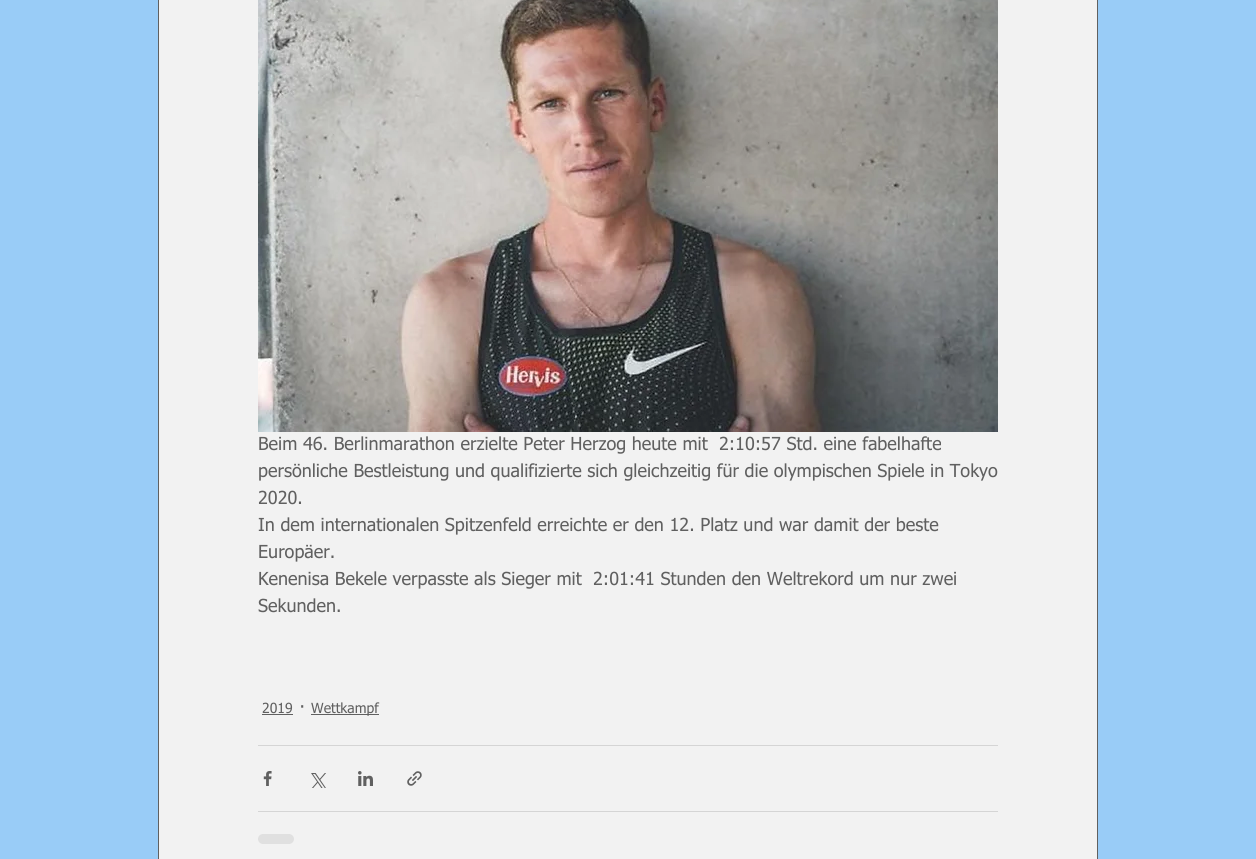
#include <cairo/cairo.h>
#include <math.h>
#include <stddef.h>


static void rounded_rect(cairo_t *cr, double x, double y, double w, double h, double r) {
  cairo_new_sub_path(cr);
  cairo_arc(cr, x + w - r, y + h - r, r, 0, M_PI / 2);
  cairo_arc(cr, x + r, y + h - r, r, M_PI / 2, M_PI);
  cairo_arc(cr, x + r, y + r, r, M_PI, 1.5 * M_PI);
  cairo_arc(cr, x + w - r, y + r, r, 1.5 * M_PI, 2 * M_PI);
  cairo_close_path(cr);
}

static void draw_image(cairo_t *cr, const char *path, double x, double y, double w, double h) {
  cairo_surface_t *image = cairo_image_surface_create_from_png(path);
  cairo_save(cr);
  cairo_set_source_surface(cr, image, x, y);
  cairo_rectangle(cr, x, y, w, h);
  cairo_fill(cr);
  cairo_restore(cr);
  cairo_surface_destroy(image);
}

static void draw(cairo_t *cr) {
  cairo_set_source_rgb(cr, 153 / 255.0, 204 / 255.0, 247 / 255.0);
  cairo_paint(cr);
  cairo_set_source_rgb(cr, 242 / 255.0, 242 / 255.0, 242 / 255.0);
  cairo_rectangle(cr, 158.5, -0.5, 939, 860);
  cairo_fill_preserve(cr);
  cairo_set_source_rgb(cr, 96 / 255.0, 96 / 255.0, 96 / 255.0);
  cairo_set_line_width(cr, 1);
  cairo_stroke(cr);
  draw_image(cr, "images/1.png", 258, 0, 740, 432);
  cairo_rectangle(cr, 262, 714, 31, 1);
  cairo_fill(cr);
  cairo_rectangle(cr, 311, 714, 68, 1);
  cairo_fill(cr);
  cairo_set_source_rgb(cr, 213 / 255.0, 213 / 255.0, 213 / 255.0);
  cairo_rectangle(cr, 258, 745, 740, 1);
  cairo_fill(cr);
  draw_image(cr, "images/2.png", 263, 771, 9, 15);
  draw_image(cr, "images/3.png", 311, 773, 15, 15);
  draw_image(cr, "images/4.png", 358, 771, 15, 15);
  draw_image(cr, "images/5.png", 407, 771, 15, 15);
  cairo_rectangle(cr, 258, 811, 740, 1);
  cairo_fill(cr);
  cairo_set_source_rgb(cr, 224 / 255.0, 224 / 255.0, 224 / 255.0);
  rounded_rect(cr, 258, 834, 36, 10, 5);
  cairo_fill(cr);
  cairo_select_font_face(cr, "tahoma", CAIRO_FONT_SLANT_NORMAL, CAIRO_FONT_WEIGHT_NORMAL);
  cairo_set_font_size(cr, 18);
  cairo_set_source_rgb(cr, 96 / 255.0, 96 / 255.0, 96 / 255.0);
  cairo_move_to(cr, 258, 450);
  cairo_show_text(cr, "Beim 46. Berlinmarathon erzielte Peter Herzog heute mit  2:10:57 Std. eine fabelhafte");
  cairo_move_to(cr, 258, 477);
  cairo_show_text(cr, "persönliche Bestleistung und qualifizierte sich gleichzeitig für die olympischen Spiele in Tokyo");
  cairo_move_to(cr, 258, 504);
  cairo_show_text(cr, "2020.");
  cairo_move_to(cr, 258, 531);
  cairo_show_text(cr, "In dem internationalen Spitzenfeld erreichte er den 12. Platz und war damit der beste");
  cairo_move_to(cr, 258, 558);
  cairo_show_text(cr, "Europäer.");
  cairo_move_to(cr, 258, 585);
  cairo_show_text(cr, "Kenenisa Bekele verpasste als Sieger mit  2:01:41 Stunden den Weltrekord um nur zwei");
  cairo_move_to(cr, 258, 612);
  cairo_show_text(cr, "Sekunden.");
  cairo_set_font_size(cr, 14);
  cairo_move_to(cr, 262, 713);
  cairo_show_text(cr, "2019");
  cairo_set_font_size(cr, 18);
  cairo_move_to(cr, 299, 715);
  cairo_show_text(cr, "·");
  cairo_set_font_size(cr, 14);
  cairo_move_to(cr, 311, 713);
  cairo_show_text(cr, "Wettkampf");
}

int main(void) {
  cairo_surface_t *surface = cairo_image_surface_create(CAIRO_FORMAT_RGB24, 1256, 859);
  cairo_t *cr = cairo_create(surface);
  cairo_font_options_t *options = cairo_font_options_create();
  cairo_font_options_set_hint_metrics(options, CAIRO_HINT_METRICS_OFF);
  cairo_font_options_set_hint_style(options, CAIRO_HINT_STYLE_NONE);
  cairo_set_font_options(cr, options);
  cairo_set_miter_limit(cr, 4);
  draw(cr);
  cairo_surface_write_to_png(surface, "out.png");
  cairo_font_options_destroy(options);
  cairo_destroy(cr);
  cairo_surface_destroy(surface);
  return 0;
}
